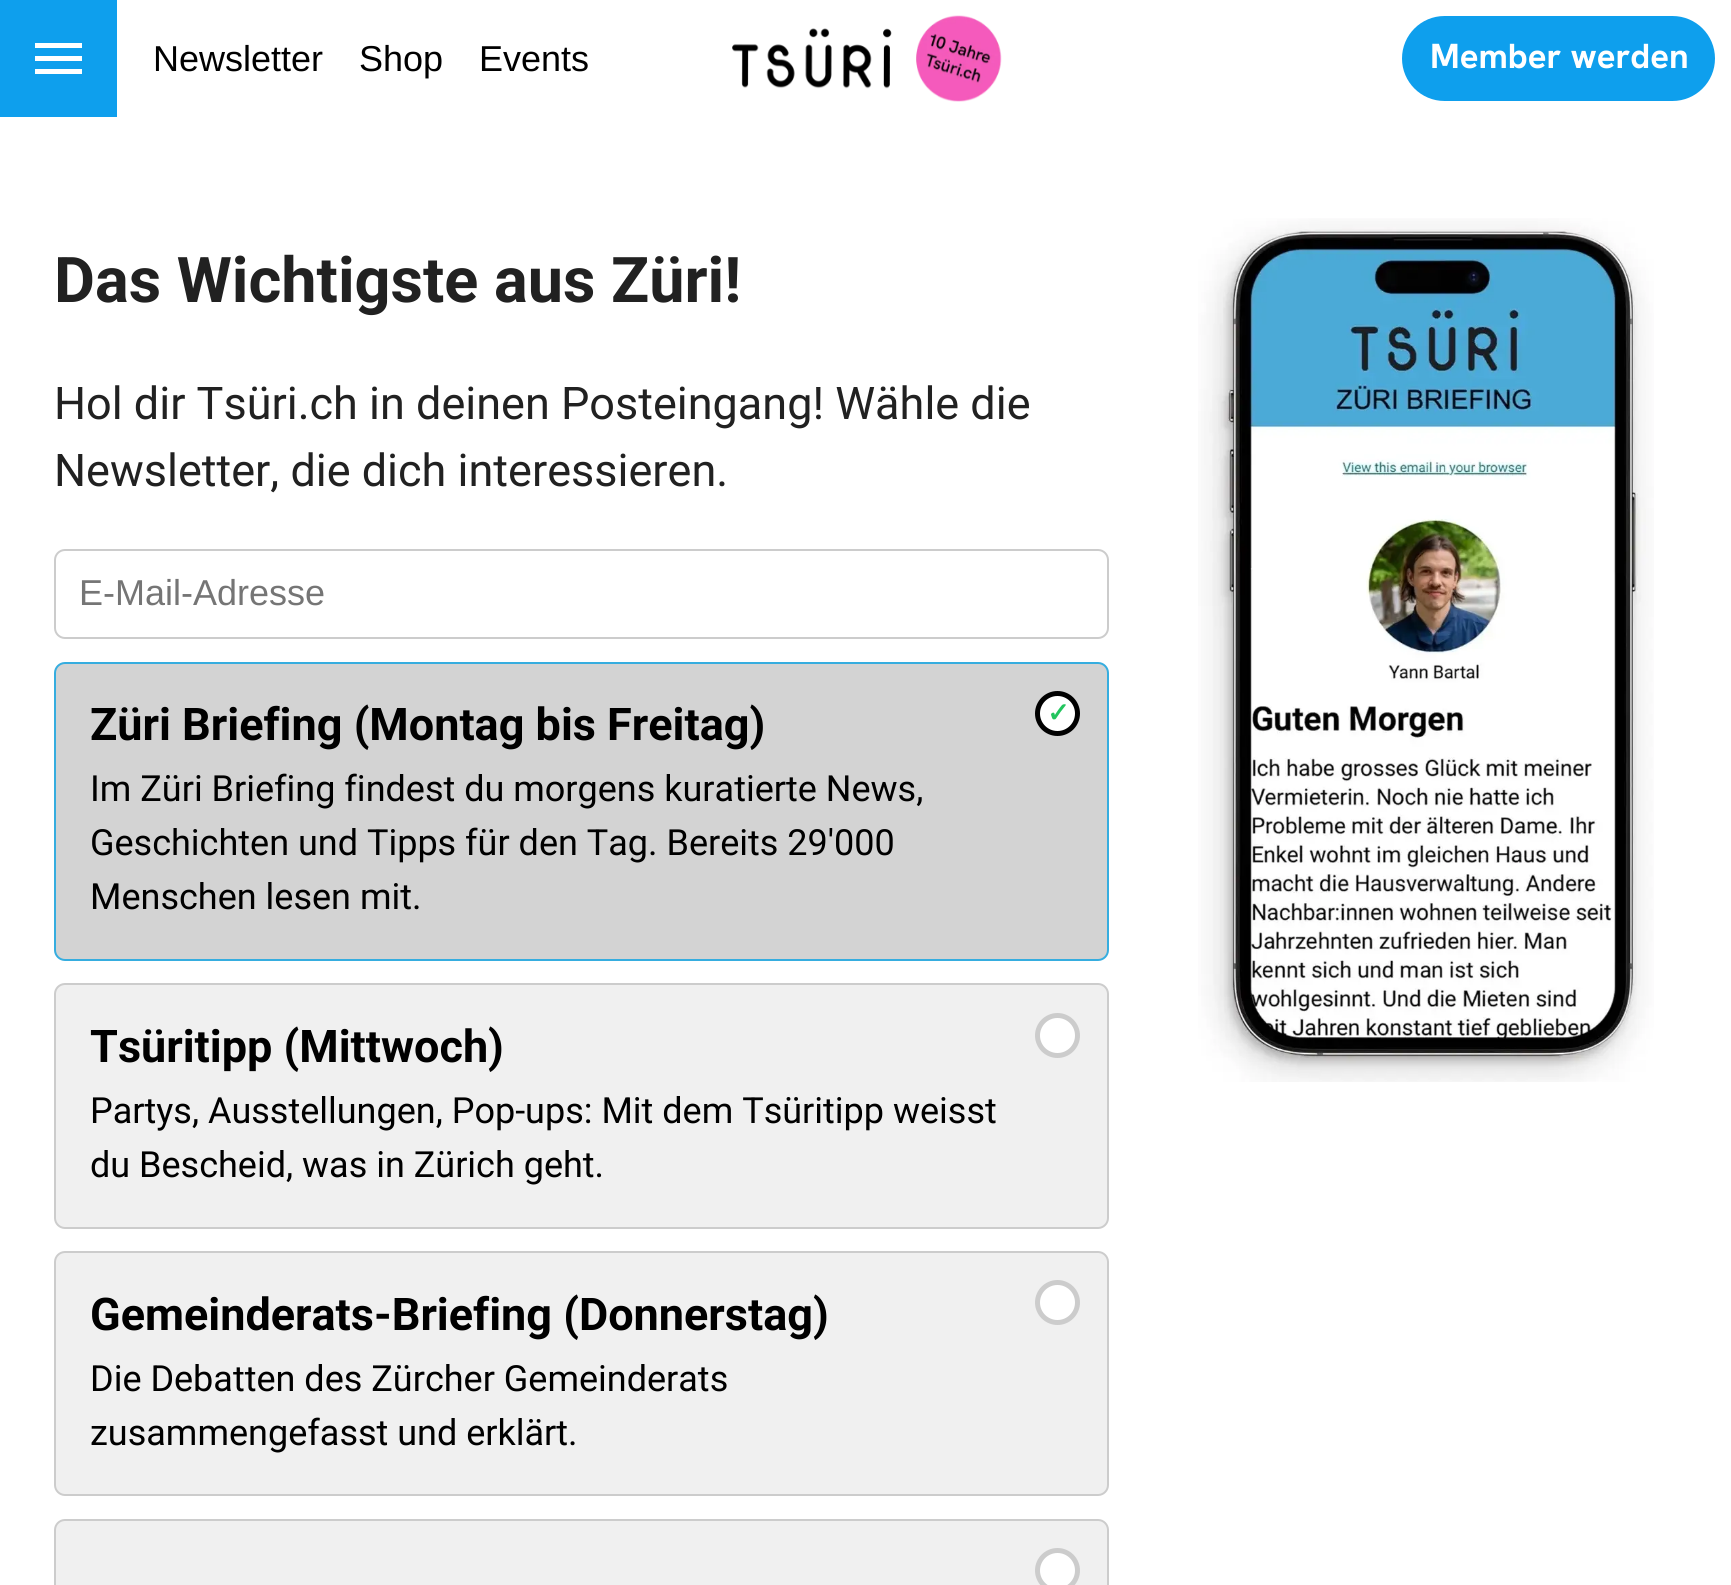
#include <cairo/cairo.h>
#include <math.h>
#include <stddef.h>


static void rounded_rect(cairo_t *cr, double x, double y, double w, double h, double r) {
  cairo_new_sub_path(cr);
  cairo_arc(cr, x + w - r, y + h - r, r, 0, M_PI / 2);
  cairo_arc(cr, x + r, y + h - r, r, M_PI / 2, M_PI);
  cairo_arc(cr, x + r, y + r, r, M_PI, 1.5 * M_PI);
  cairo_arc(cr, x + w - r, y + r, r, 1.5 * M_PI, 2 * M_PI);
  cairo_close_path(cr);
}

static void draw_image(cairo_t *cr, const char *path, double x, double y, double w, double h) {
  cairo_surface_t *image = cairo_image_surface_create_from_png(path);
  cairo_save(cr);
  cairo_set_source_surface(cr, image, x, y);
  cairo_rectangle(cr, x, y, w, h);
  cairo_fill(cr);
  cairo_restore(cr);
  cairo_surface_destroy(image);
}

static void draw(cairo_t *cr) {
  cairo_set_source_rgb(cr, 1, 1, 1);
  cairo_paint(cr);
  cairo_set_source_rgb(cr, 14 / 255.0, 159 / 255.0, 237 / 255.0);
  cairo_rectangle(cr, 0, 0, 117, 117);
  cairo_fill(cr);
  cairo_set_source_rgb(cr, 1, 1, 1);
  cairo_new_path(cr);
  cairo_move_to(cr, 35, 74);
  cairo_line_to(cr, 82, 74);
  cairo_line_to(cr, 82, 69);
  cairo_line_to(cr, 35, 69);
  cairo_close_path(cr);
  cairo_move_to(cr, 35, 61);
  cairo_line_to(cr, 82, 61);
  cairo_line_to(cr, 82, 56);
  cairo_line_to(cr, 35, 56);
  cairo_close_path(cr);
  cairo_move_to(cr, 35, 43);
  cairo_line_to(cr, 35, 48);
  cairo_line_to(cr, 82, 48);
  cairo_line_to(cr, 82, 43);
  cairo_close_path(cr);
  cairo_fill(cr);
  draw_image(cr, "images/1.png", 732, 15, 270, 87);
  cairo_set_source_rgb(cr, 14 / 255.0, 159 / 255.0, 237 / 255.0);
  rounded_rect(cr, 1402, 16, 313, 85, 42.5);
  cairo_fill(cr);
  rounded_rect(cr, 55, 550, 1053, 88, 10);
  cairo_set_source_rgb(cr, 204 / 255.0, 204 / 255.0, 204 / 255.0);
  cairo_stroke(cr);
  cairo_set_source_rgb(cr, 211 / 255.0, 211 / 255.0, 211 / 255.0);
  rounded_rect(cr, 55, 663, 1053, 297, 10);
  cairo_fill_preserve(cr);
  cairo_set_source_rgb(cr, 54 / 255.0, 173 / 255.0, 223 / 255.0);
  cairo_stroke(cr);
  cairo_set_source_rgb(cr, 1, 1, 1);
  cairo_arc(cr, 1057.5, 713.5, 20, 0, 2 * M_PI);
  cairo_fill_preserve(cr);
  cairo_set_source_rgb(cr, 0, 0, 0);
  cairo_set_line_width(cr, 5);
  cairo_stroke(cr);
  cairo_set_source_rgb(cr, 240 / 255.0, 240 / 255.0, 240 / 255.0);
  rounded_rect(cr, 55, 984, 1053, 244, 10);
  cairo_fill_preserve(cr);
  cairo_set_source_rgb(cr, 204 / 255.0, 204 / 255.0, 204 / 255.0);
  cairo_set_line_width(cr, 2);
  cairo_stroke(cr);
  cairo_set_source_rgb(cr, 1, 1, 1);
  cairo_arc(cr, 1057.5, 1035.5, 20, 0, 2 * M_PI);
  cairo_fill_preserve(cr);
  cairo_set_source_rgb(cr, 204 / 255.0, 204 / 255.0, 204 / 255.0);
  cairo_set_line_width(cr, 5);
  cairo_stroke(cr);
  cairo_set_source_rgb(cr, 240 / 255.0, 240 / 255.0, 240 / 255.0);
  rounded_rect(cr, 55, 1252, 1053, 243, 10);
  cairo_fill_preserve(cr);
  cairo_set_source_rgb(cr, 204 / 255.0, 204 / 255.0, 204 / 255.0);
  cairo_set_line_width(cr, 2);
  cairo_stroke(cr);
  cairo_set_source_rgb(cr, 1, 1, 1);
  cairo_arc(cr, 1057.5, 1302.5, 20, 0, 2 * M_PI);
  cairo_fill_preserve(cr);
  cairo_set_source_rgb(cr, 204 / 255.0, 204 / 255.0, 204 / 255.0);
  cairo_set_line_width(cr, 5);
  cairo_stroke(cr);
  cairo_set_source_rgb(cr, 240 / 255.0, 240 / 255.0, 240 / 255.0);
  rounded_rect(cr, 55, 1520, 1053, 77, 10);
  cairo_fill_preserve(cr);
  cairo_set_source_rgb(cr, 204 / 255.0, 204 / 255.0, 204 / 255.0);
  cairo_set_line_width(cr, 2);
  cairo_stroke(cr);
  cairo_set_source_rgb(cr, 1, 1, 1);
  cairo_arc(cr, 1057.5, 1570.5, 20, 0, 2 * M_PI);
  cairo_fill_preserve(cr);
  cairo_set_source_rgb(cr, 204 / 255.0, 204 / 255.0, 204 / 255.0);
  cairo_set_line_width(cr, 5);
  cairo_stroke(cr);
  draw_image(cr, "images/2.png", 1198, 218, 456, 864);
  cairo_select_font_face(cr, "Liberation Sans", CAIRO_FONT_SLANT_NORMAL, CAIRO_FONT_WEIGHT_NORMAL);
  cairo_set_font_size(cr, 36);
  cairo_set_source_rgb(cr, 0, 0, 0);
  cairo_move_to(cr, 153, 71);
  cairo_show_text(cr, "Newsletter");
  cairo_move_to(cr, 359, 71);
  cairo_show_text(cr, "Shop");
  cairo_move_to(cr, 479, 71);
  cairo_show_text(cr, "Events");
  cairo_select_font_face(cr, "Hanken Grotesk", CAIRO_FONT_SLANT_NORMAL, CAIRO_FONT_WEIGHT_BOLD);
  cairo_set_font_size(cr, 34.75);
  cairo_set_source_rgb(cr, 1, 1, 1);
  cairo_move_to(cr, 1430, 68);
  cairo_show_text(cr, "Member werden");
  cairo_select_font_face(cr, "Roboto", CAIRO_FONT_SLANT_NORMAL, CAIRO_FONT_WEIGHT_BOLD);
  cairo_set_font_size(cr, 63);
  cairo_set_source_rgb(cr, 33 / 255.0, 33 / 255.0, 33 / 255.0);
  cairo_move_to(cr, 54, 302);
  cairo_show_text(cr, "Das Wichtigste aus Züri!");
  cairo_select_font_face(cr, "Roboto", CAIRO_FONT_SLANT_NORMAL, CAIRO_FONT_WEIGHT_NORMAL);
  cairo_set_font_size(cr, 45);
  cairo_move_to(cr, 54, 419);
  cairo_show_text(cr, "Hol dir Tsüri.ch in deinen Posteingang! Wähle die");
  cairo_move_to(cr, 54, 486);
  cairo_show_text(cr, "Newsletter, die dich interessieren.");
  cairo_select_font_face(cr, "Liberation Sans", CAIRO_FONT_SLANT_NORMAL, CAIRO_FONT_WEIGHT_NORMAL);
  cairo_set_font_size(cr, 36);
  cairo_set_source_rgb(cr, 117 / 255.0, 117 / 255.0, 117 / 255.0);
  cairo_move_to(cr, 79, 605);
  cairo_show_text(cr, "E-Mail-Adresse");
  cairo_select_font_face(cr, "Roboto", CAIRO_FONT_SLANT_NORMAL, CAIRO_FONT_WEIGHT_BOLD);
  cairo_set_font_size(cr, 45);
  cairo_set_source_rgb(cr, 0, 0, 0);
  cairo_move_to(cr, 90, 740);
  cairo_show_text(cr, "Züri Briefing (Montag bis Freitag)");
  cairo_select_font_face(cr, "Roboto", CAIRO_FONT_SLANT_NORMAL, CAIRO_FONT_WEIGHT_NORMAL);
  cairo_set_font_size(cr, 36);
  cairo_move_to(cr, 90, 801);
  cairo_show_text(cr, "Im Züri Briefing findest du morgens kuratierte News,");
  cairo_move_to(cr, 90, 855);
  cairo_show_text(cr, "Geschichten und Tipps für den Tag. Bereits 29'000");
  cairo_move_to(cr, 90, 909);
  cairo_show_text(cr, "Menschen lesen mit.");
  cairo_select_font_face(cr, "DejaVu Sans", CAIRO_FONT_SLANT_NORMAL, CAIRO_FONT_WEIGHT_BOLD);
  cairo_set_font_size(cr, 27);
  cairo_set_source_rgb(cr, 34 / 255.0, 197 / 255.0, 94 / 255.0);
  cairo_move_to(cr, 1047, 722);
  cairo_show_text(cr, "✓");
  cairo_select_font_face(cr, "Roboto", CAIRO_FONT_SLANT_NORMAL, CAIRO_FONT_WEIGHT_BOLD);
  cairo_set_font_size(cr, 45);
  cairo_set_source_rgb(cr, 0, 0, 0);
  cairo_move_to(cr, 90, 1062);
  cairo_show_text(cr, "Tsüritipp (Mittwoch)");
  cairo_select_font_face(cr, "Roboto", CAIRO_FONT_SLANT_NORMAL, CAIRO_FONT_WEIGHT_NORMAL);
  cairo_set_font_size(cr, 36);
  cairo_move_to(cr, 90, 1123);
  cairo_show_text(cr, "Partys, Ausstellungen, Pop-ups: Mit dem Tsüritipp weisst");
  cairo_move_to(cr, 90, 1177);
  cairo_show_text(cr, "du Bescheid, was in Zürich geht.");
  cairo_select_font_face(cr, "Roboto", CAIRO_FONT_SLANT_NORMAL, CAIRO_FONT_WEIGHT_BOLD);
  cairo_set_font_size(cr, 45);
  cairo_move_to(cr, 90, 1330);
  cairo_show_text(cr, "Gemeinderats-Briefing (Donnerstag)");
  cairo_select_font_face(cr, "Roboto", CAIRO_FONT_SLANT_NORMAL, CAIRO_FONT_WEIGHT_NORMAL);
  cairo_set_font_size(cr, 36);
  cairo_move_to(cr, 90, 1391);
  cairo_show_text(cr, "Die Debatten des Zürcher Gemeinderats");
  cairo_move_to(cr, 90, 1445);
  cairo_show_text(cr, "zusammengefasst und erklärt.");
}

int main(void) {
  cairo_surface_t *surface = cairo_image_surface_create(CAIRO_FORMAT_RGB24, 1731, 1585);
  cairo_t *cr = cairo_create(surface);
  cairo_font_options_t *options = cairo_font_options_create();
  cairo_font_options_set_hint_metrics(options, CAIRO_HINT_METRICS_OFF);
  cairo_font_options_set_hint_style(options, CAIRO_HINT_STYLE_NONE);
  cairo_set_font_options(cr, options);
  cairo_set_miter_limit(cr, 4);
  draw(cr);
  cairo_surface_write_to_png(surface, "out.png");
  cairo_font_options_destroy(options);
  cairo_destroy(cr);
  cairo_surface_destroy(surface);
  return 0;
}
